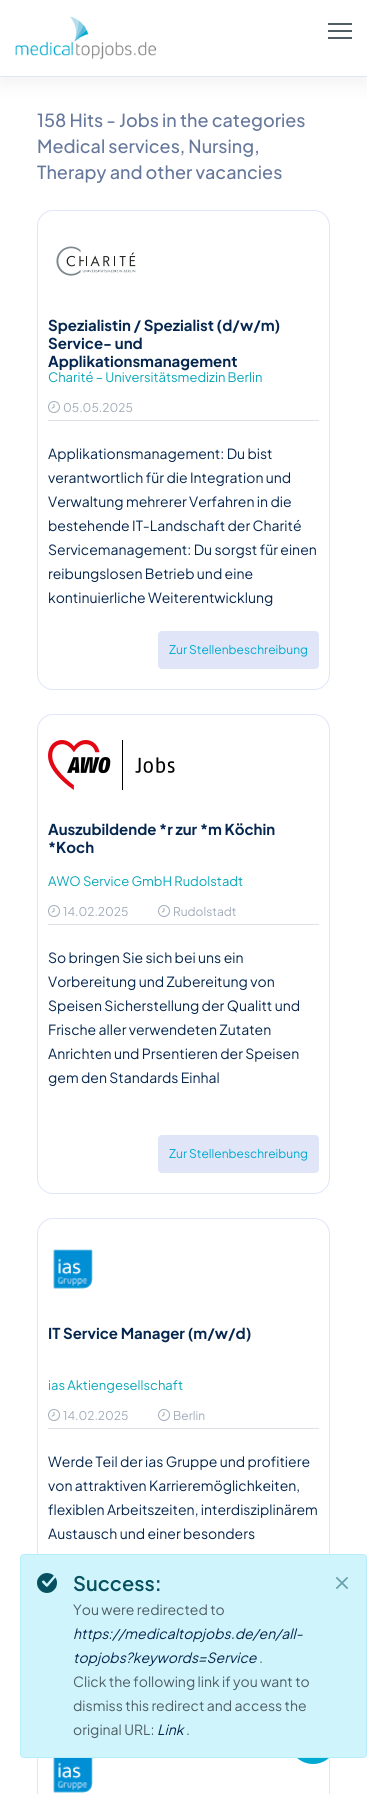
#include <cairo/cairo.h>
#include <math.h>
#include <stddef.h>


static void rounded_rect(cairo_t *cr, double x, double y, double w, double h, double r) {
  cairo_new_sub_path(cr);
  cairo_arc(cr, x + w - r, y + h - r, r, 0, M_PI / 2);
  cairo_arc(cr, x + r, y + h - r, r, M_PI / 2, M_PI);
  cairo_arc(cr, x + r, y + r, r, M_PI, 1.5 * M_PI);
  cairo_arc(cr, x + w - r, y + r, r, 1.5 * M_PI, 2 * M_PI);
  cairo_close_path(cr);
}

static void draw_shadow(cairo_t *cr, double x, double y, double w, double h, double r, double blur, double alpha) {
  cairo_push_group_with_content(cr, CAIRO_CONTENT_ALPHA);
  cairo_set_operator(cr, CAIRO_OPERATOR_SOURCE);
  for (int i = 15; i >= -15 && fmin(w, h) + blur * i / 3 > 0; i -= 2) {
    double e = blur * i / 6;
    cairo_set_source_rgba(cr, 0, 0, 0, alpha * erfc((i - 1) / 8.5) / 2);
    rounded_rect(cr, x - e, y - e, w + 2 * e, h + 2 * e, fmax(0, fmin(r + e + blur * .6, fmin(w, h) / 2 + e)));
    cairo_fill(cr);
  }
  cairo_pattern_t *soft = cairo_pop_group(cr);
  cairo_mask(cr, soft);
  cairo_pattern_destroy(soft);
}

static void draw_image(cairo_t *cr, const char *path, double x, double y, double w, double h) {
  cairo_surface_t *image = cairo_image_surface_create_from_png(path);
  cairo_save(cr);
  cairo_set_source_surface(cr, image, x, y);
  cairo_rectangle(cr, x, y, w, h);
  cairo_fill(cr);
  cairo_restore(cr);
  cairo_surface_destroy(image);
}

static void draw(cairo_t *cr) {
  cairo_set_source_rgb(cr, 1, 1, 1);
  cairo_paint(cr);
  cairo_set_source_rgb(cr, 0, 0, 0);
  draw_shadow(cr, 0, 8, 367, 77, 0, 10, 0.05);
  cairo_set_source_rgb(cr, 1, 1, 1);
  cairo_rectangle(cr, 0, 0, 367, 76);
  cairo_fill(cr);
  cairo_set_source_rgb(cr, 224 / 255.0, 230 / 255.0, 246 / 255.0);
  cairo_rectangle(cr, 0, 76, 367, 1);
  cairo_fill(cr);
  draw_image(cr, "images/1.png", 15, 16, 141, 44);
  cairo_set_source_rgb(cr, 79 / 255.0, 94 / 255.0, 100 / 255.0);
  cairo_rectangle(cr, 328, 23, 24, 2);
  cairo_fill(cr);
  cairo_rectangle(cr, 328, 30, 24, 2);
  cairo_fill(cr);
  cairo_rectangle(cr, 328, 37, 24, 2);
  cairo_fill(cr);
  rounded_rect(cr, 37.5, 210.5, 292, 479, 15.5);
  cairo_set_source_rgb(cr, 224 / 255.0, 230 / 255.0, 247 / 255.0);
  cairo_set_line_width(cr, 1);
  cairo_stroke(cr);
  draw_image(cr, "images/2.png", 56, 246, 80, 30);
  cairo_set_source_rgb(cr, 222 / 255.0, 226 / 255.0, 230 / 255.0);
  cairo_rectangle(cr, 48, 420, 271, 1);
  cairo_fill(cr);
  draw_image(cr, "images/3.png", 48, 401, 12, 12);
  cairo_set_source_rgb(cr, 224 / 255.0, 230 / 255.0, 247 / 255.0);
  rounded_rect(cr, 158, 631, 161, 38, 4);
  cairo_fill(cr);
  rounded_rect(cr, 37.5, 714.5, 292, 479, 15.5);
  cairo_stroke(cr);
  draw_image(cr, "images/4.png", 48, 740, 127, 50);
  cairo_set_source_rgb(cr, 222 / 255.0, 226 / 255.0, 230 / 255.0);
  cairo_rectangle(cr, 48, 924, 271, 1);
  cairo_fill(cr);
  draw_image(cr, "images/3.png", 48, 905, 12, 12);
  draw_image(cr, "images/3.png", 158, 905, 12, 12);
  cairo_set_source_rgb(cr, 224 / 255.0, 230 / 255.0, 247 / 255.0);
  rounded_rect(cr, 158, 1135, 161, 38, 4);
  cairo_fill(cr);
  rounded_rect(cr, 37.5, 1218.5, 292, 479, 15.5);
  cairo_stroke(cr);
  draw_image(cr, "images/5.png", 53, 1249, 40, 40);
  cairo_set_source_rgb(cr, 222 / 255.0, 226 / 255.0, 230 / 255.0);
  cairo_rectangle(cr, 48, 1428, 271, 1);
  cairo_fill(cr);
  draw_image(cr, "images/3.png", 48, 1409, 12, 12);
  draw_image(cr, "images/3.png", 158, 1409, 12, 12);
  cairo_rectangle(cr, 37.5, 1722.5, 292, 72);
  cairo_set_source_rgb(cr, 224 / 255.0, 230 / 255.0, 247 / 255.0);
  cairo_stroke(cr);
  draw_image(cr, "images/6.png", 53, 1758, 40, 35);
  cairo_set_source_rgb(cr, 0, 169 / 255.0, 210 / 255.0);
  cairo_arc(cr, 313, 1740, 24, 0, 2 * M_PI);
  cairo_fill(cr);
  cairo_set_source_rgb(cr, 207 / 255.0, 244 / 255.0, 252 / 255.0);
  rounded_rect(cr, 20.5, 1554.5, 346, 203, 3.5);
  cairo_fill_preserve(cr);
  cairo_set_source_rgb(cr, 182 / 255.0, 239 / 255.0, 251 / 255.0);
  cairo_stroke(cr);
  draw_image(cr, "images/7.png", 37, 1573, 20, 20);
  draw_image(cr, "images/8.png", 336, 1577, 12, 12);
  cairo_select_font_face(cr, "Plus Jakarta Sans Medium", CAIRO_FONT_SLANT_NORMAL, CAIRO_FONT_WEIGHT_NORMAL);
  cairo_set_font_size(cr, 18);
  cairo_set_source_rgb(cr, 102 / 255.0, 120 / 255.0, 156 / 255.0);
  cairo_move_to(cr, 37, 127);
  cairo_show_text(cr, "158 Hits - Jobs in the categories");
  cairo_move_to(cr, 37, 153);
  cairo_show_text(cr, "Medical services, Nursing,");
  cairo_move_to(cr, 37, 179);
  cairo_show_text(cr, "Therapy and other vacancies");
  cairo_select_font_face(cr, "Plus Jakarta Sans", CAIRO_FONT_SLANT_NORMAL, CAIRO_FONT_WEIGHT_BOLD);
  cairo_set_font_size(cr, 15);
  cairo_set_source_rgb(cr, 5 / 255.0, 38 / 255.0, 78 / 255.0);
  cairo_move_to(cr, 48, 331);
  cairo_show_text(cr, "Spezialistin / Spezialist (d/w/m)");
  cairo_move_to(cr, 48, 349);
  cairo_show_text(cr, "Service- und");
  cairo_move_to(cr, 48, 367);
  cairo_show_text(cr, "Applikationsmanagement");
  cairo_select_font_face(cr, "Plus Jakarta Sans", CAIRO_FONT_SLANT_NORMAL, CAIRO_FONT_WEIGHT_NORMAL);
  cairo_set_font_size(cr, 13);
  cairo_set_source_rgb(cr, 10 / 255.0, 167 / 255.0, 185 / 255.0);
  cairo_move_to(cr, 48, 382);
  cairo_show_text(cr, "Charité – Universitätsmedizin Berlin");
  cairo_set_font_size(cr, 12);
  cairo_set_source_rgb(cr, 160 / 255.0, 171 / 255.0, 184 / 255.0);
  cairo_move_to(cr, 63, 412);
  cairo_show_text(cr, "05.05.2025");
  cairo_set_font_size(cr, 14);
  cairo_set_source_rgb(cr, 5 / 255.0, 38 / 255.0, 78 / 255.0);
  cairo_move_to(cr, 48, 459);
  cairo_show_text(cr, "Applikationsmanagement: Du bist");
  cairo_move_to(cr, 48, 483);
  cairo_show_text(cr, "verantwortlich für die Integration und");
  cairo_move_to(cr, 48, 507);
  cairo_show_text(cr, "Verwaltung mehrerer Verfahren in die");
  cairo_move_to(cr, 48, 531);
  cairo_show_text(cr, "bestehende IT-Landschaft der Charité");
  cairo_move_to(cr, 48, 555);
  cairo_show_text(cr, "Servicemanagement: Du sorgst für einen");
  cairo_move_to(cr, 48, 579);
  cairo_show_text(cr, "reibungslosen Betrieb und eine");
  cairo_move_to(cr, 48, 603);
  cairo_show_text(cr, "kontinuierliche Weiterentwicklung");
  cairo_set_font_size(cr, 12);
  cairo_set_source_rgb(cr, 0, 169 / 255.0, 210 / 255.0);
  cairo_move_to(cr, 169, 654);
  cairo_show_text(cr, "Zur Stellenbeschreibung");
  cairo_select_font_face(cr, "Plus Jakarta Sans", CAIRO_FONT_SLANT_NORMAL, CAIRO_FONT_WEIGHT_BOLD);
  cairo_set_font_size(cr, 15);
  cairo_set_source_rgb(cr, 5 / 255.0, 38 / 255.0, 78 / 255.0);
  cairo_move_to(cr, 48, 835);
  cairo_show_text(cr, "Auszubildende *r zur *m Köchin");
  cairo_move_to(cr, 48, 853);
  cairo_show_text(cr, "*Koch");
  cairo_select_font_face(cr, "Plus Jakarta Sans", CAIRO_FONT_SLANT_NORMAL, CAIRO_FONT_WEIGHT_NORMAL);
  cairo_set_font_size(cr, 13);
  cairo_set_source_rgb(cr, 10 / 255.0, 167 / 255.0, 185 / 255.0);
  cairo_move_to(cr, 48, 886);
  cairo_show_text(cr, "AWO Service GmbH Rudolstadt");
  cairo_set_font_size(cr, 12);
  cairo_set_source_rgb(cr, 160 / 255.0, 171 / 255.0, 184 / 255.0);
  cairo_move_to(cr, 63, 916);
  cairo_show_text(cr, "14.02.2025");
  cairo_move_to(cr, 173, 916);
  cairo_show_text(cr, "Rudolstadt");
  cairo_set_font_size(cr, 14);
  cairo_set_source_rgb(cr, 5 / 255.0, 38 / 255.0, 78 / 255.0);
  cairo_move_to(cr, 48, 963);
  cairo_show_text(cr, "So bringen Sie sich bei uns ein");
  cairo_move_to(cr, 48, 987);
  cairo_show_text(cr, "Vorbereitung und Zubereitung von");
  cairo_move_to(cr, 48, 1011);
  cairo_show_text(cr, "Speisen Sicherstellung der Qualitt und");
  cairo_move_to(cr, 48, 1035);
  cairo_show_text(cr, "Frische aller verwendeten Zutaten");
  cairo_move_to(cr, 48, 1059);
  cairo_show_text(cr, "Anrichten und Prsentieren der Speisen");
  cairo_move_to(cr, 48, 1083);
  cairo_show_text(cr, "gem den Standards Einhal");
  cairo_set_font_size(cr, 12);
  cairo_set_source_rgb(cr, 0, 169 / 255.0, 210 / 255.0);
  cairo_move_to(cr, 169, 1158);
  cairo_show_text(cr, "Zur Stellenbeschreibung");
  cairo_select_font_face(cr, "Plus Jakarta Sans", CAIRO_FONT_SLANT_NORMAL, CAIRO_FONT_WEIGHT_BOLD);
  cairo_set_font_size(cr, 15);
  cairo_set_source_rgb(cr, 5 / 255.0, 38 / 255.0, 78 / 255.0);
  cairo_move_to(cr, 48, 1339);
  cairo_show_text(cr, "IT Service Manager (m/w/d)");
  cairo_select_font_face(cr, "Plus Jakarta Sans", CAIRO_FONT_SLANT_NORMAL, CAIRO_FONT_WEIGHT_NORMAL);
  cairo_set_font_size(cr, 13);
  cairo_set_source_rgb(cr, 10 / 255.0, 167 / 255.0, 185 / 255.0);
  cairo_move_to(cr, 48, 1390);
  cairo_show_text(cr, "ias Aktiengesellschaft");
  cairo_set_font_size(cr, 12);
  cairo_set_source_rgb(cr, 160 / 255.0, 171 / 255.0, 184 / 255.0);
  cairo_move_to(cr, 63, 1420);
  cairo_show_text(cr, "14.02.2025");
  cairo_move_to(cr, 173, 1420);
  cairo_show_text(cr, "Berlin");
  cairo_set_font_size(cr, 14);
  cairo_set_source_rgb(cr, 5 / 255.0, 38 / 255.0, 78 / 255.0);
  cairo_move_to(cr, 48, 1467);
  cairo_show_text(cr, "Werde Teil der ias Gruppe und profitiere");
  cairo_move_to(cr, 48, 1491);
  cairo_show_text(cr, "von attraktiven Karrieremöglichkeiten,");
  cairo_move_to(cr, 48, 1515);
  cairo_show_text(cr, "flexiblen Arbeitszeiten, interdisziplinärem");
  cairo_move_to(cr, 48, 1539);
  cairo_show_text(cr, "Austausch und einer besonders");
  cairo_select_font_face(cr, "Plus Jakarta Sans SemiBold", CAIRO_FONT_SLANT_NORMAL, CAIRO_FONT_WEIGHT_NORMAL);
  cairo_set_font_size(cr, 20);
  cairo_set_source_rgb(cr, 5 / 255.0, 81 / 255.0, 96 / 255.0);
  cairo_move_to(cr, 73, 1591);
  cairo_show_text(cr, "Success:");
  cairo_select_font_face(cr, "Plus Jakarta Sans", CAIRO_FONT_SLANT_NORMAL, CAIRO_FONT_WEIGHT_NORMAL);
  cairo_set_font_size(cr, 14);
  cairo_set_source_rgb(cr, 79 / 255.0, 94 / 255.0, 100 / 255.0);
  cairo_move_to(cr, 73, 1615);
  cairo_show_text(cr, "You were redirected to");
  cairo_select_font_face(cr, "Plus Jakarta Sans", CAIRO_FONT_SLANT_ITALIC, CAIRO_FONT_WEIGHT_NORMAL);
  cairo_set_source_rgb(cr, 5 / 255.0, 38 / 255.0, 78 / 255.0);
  cairo_move_to(cr, 73, 1639);
  cairo_show_text(cr, "https://medicaltopjobs.de/en/all-");
  cairo_move_to(cr, 73, 1663);
  cairo_show_text(cr, "topjobs?keywords=Service");
  cairo_select_font_face(cr, "Plus Jakarta Sans", CAIRO_FONT_SLANT_NORMAL, CAIRO_FONT_WEIGHT_NORMAL);
  cairo_set_source_rgb(cr, 79 / 255.0, 94 / 255.0, 100 / 255.0);
  cairo_move_to(cr, 259, 1663);
  cairo_show_text(cr, ".");
  cairo_move_to(cr, 73, 1687);
  cairo_show_text(cr, "Click the following link if you want to");
  cairo_move_to(cr, 73, 1711);
  cairo_show_text(cr, "dismiss this redirect and access the");
  cairo_move_to(cr, 73, 1735);
  cairo_show_text(cr, "original URL:");
  cairo_select_font_face(cr, "Plus Jakarta Sans", CAIRO_FONT_SLANT_ITALIC, CAIRO_FONT_WEIGHT_NORMAL);
  cairo_set_source_rgb(cr, 5 / 255.0, 38 / 255.0, 78 / 255.0);
  cairo_move_to(cr, 157, 1735);
  cairo_show_text(cr, "Link");
  cairo_select_font_face(cr, "Plus Jakarta Sans", CAIRO_FONT_SLANT_NORMAL, CAIRO_FONT_WEIGHT_NORMAL);
  cairo_set_source_rgb(cr, 79 / 255.0, 94 / 255.0, 100 / 255.0);
  cairo_move_to(cr, 186, 1735);
  cairo_show_text(cr, ".");
}

int main(void) {
  cairo_surface_t *surface = cairo_image_surface_create(CAIRO_FORMAT_RGB24, 367, 1794);
  cairo_t *cr = cairo_create(surface);
  cairo_font_options_t *options = cairo_font_options_create();
  cairo_font_options_set_hint_metrics(options, CAIRO_HINT_METRICS_OFF);
  cairo_font_options_set_hint_style(options, CAIRO_HINT_STYLE_NONE);
  cairo_set_font_options(cr, options);
  cairo_set_miter_limit(cr, 4);
  draw(cr);
  cairo_surface_write_to_png(surface, "out.png");
  cairo_font_options_destroy(options);
  cairo_destroy(cr);
  cairo_surface_destroy(surface);
  return 0;
}
